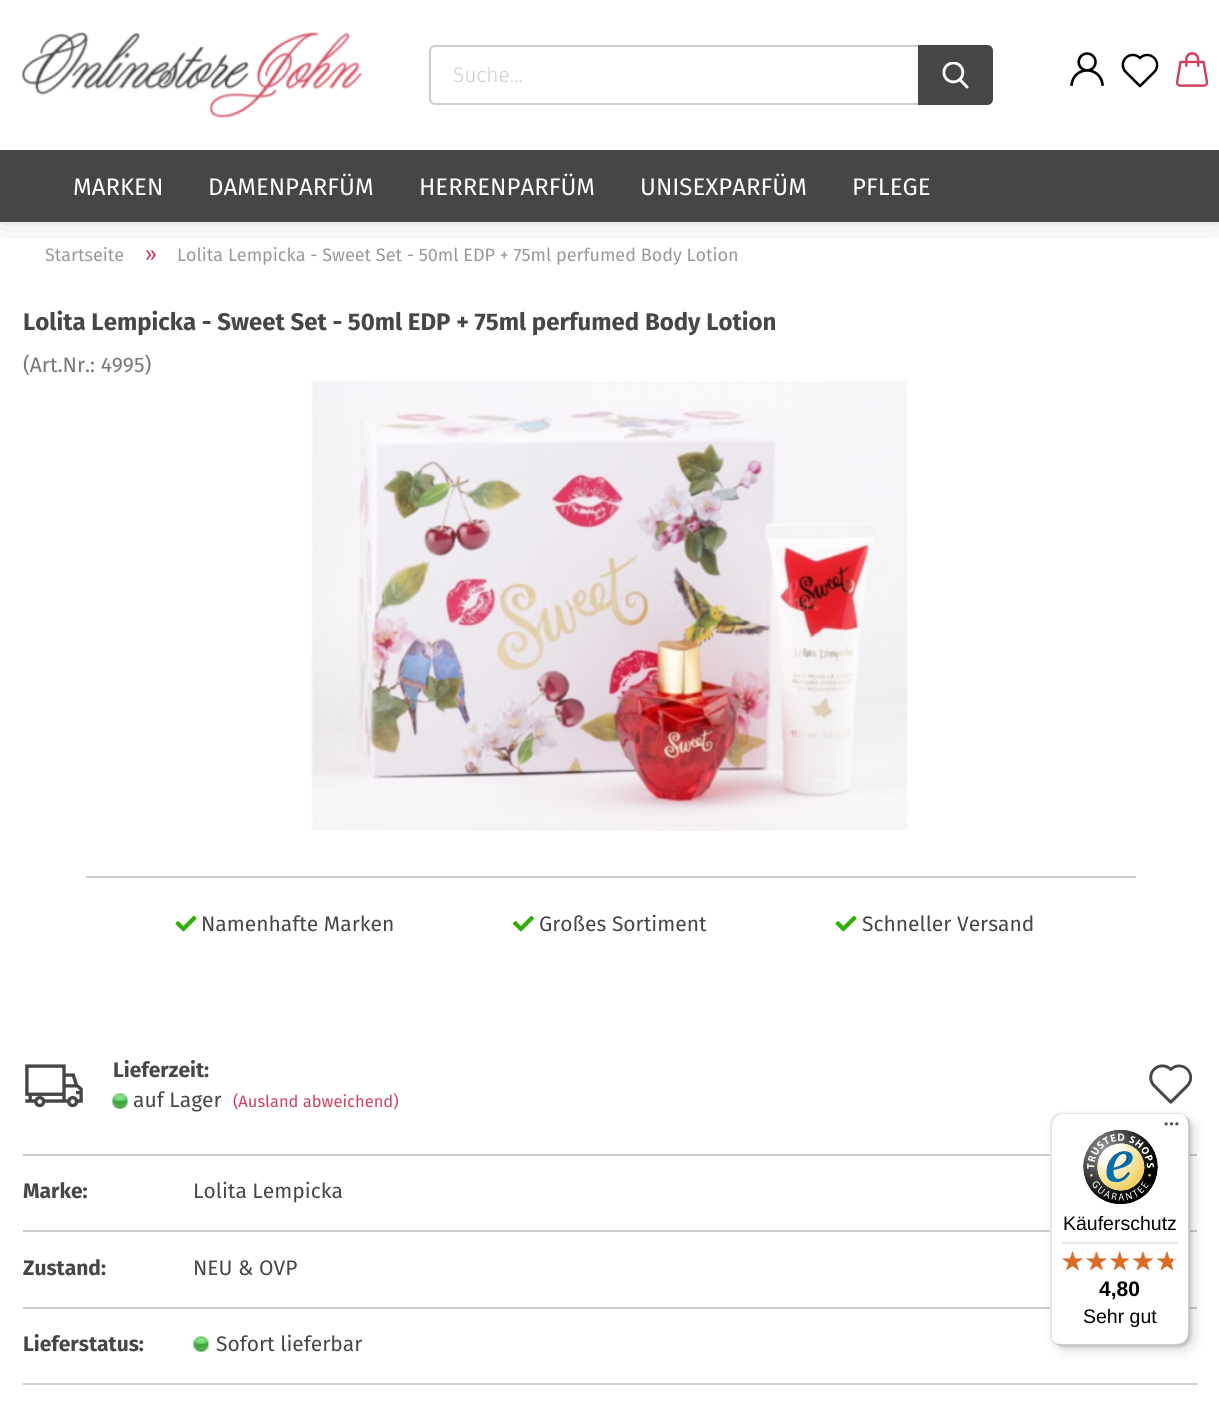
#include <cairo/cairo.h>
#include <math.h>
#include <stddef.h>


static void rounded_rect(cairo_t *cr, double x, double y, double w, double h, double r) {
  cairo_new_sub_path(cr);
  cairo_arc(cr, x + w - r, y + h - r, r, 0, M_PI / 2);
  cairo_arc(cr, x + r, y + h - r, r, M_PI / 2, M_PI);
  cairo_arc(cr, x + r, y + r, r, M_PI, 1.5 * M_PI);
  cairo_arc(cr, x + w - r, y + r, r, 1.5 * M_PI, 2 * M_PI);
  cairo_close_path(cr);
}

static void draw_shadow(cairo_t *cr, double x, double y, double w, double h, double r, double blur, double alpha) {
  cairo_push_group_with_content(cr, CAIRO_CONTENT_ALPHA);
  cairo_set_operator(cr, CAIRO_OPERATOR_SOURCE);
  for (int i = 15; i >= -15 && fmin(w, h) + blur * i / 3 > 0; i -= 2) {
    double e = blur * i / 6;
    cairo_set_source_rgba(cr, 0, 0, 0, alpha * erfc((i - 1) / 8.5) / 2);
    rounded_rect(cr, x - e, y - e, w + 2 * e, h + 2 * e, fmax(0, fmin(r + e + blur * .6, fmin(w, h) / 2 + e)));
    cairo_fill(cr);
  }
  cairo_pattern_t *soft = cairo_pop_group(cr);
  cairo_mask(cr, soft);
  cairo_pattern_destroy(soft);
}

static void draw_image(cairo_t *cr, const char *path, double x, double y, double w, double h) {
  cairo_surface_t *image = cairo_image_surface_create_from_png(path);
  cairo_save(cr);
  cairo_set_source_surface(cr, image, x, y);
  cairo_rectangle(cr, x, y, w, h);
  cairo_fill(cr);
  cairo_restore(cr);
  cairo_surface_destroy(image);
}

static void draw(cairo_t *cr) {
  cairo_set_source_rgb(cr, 1, 1, 1);
  cairo_paint(cr);
  cairo_save(cr);
  cairo_rectangle(cr, 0, 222, 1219, 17);
  cairo_clip(cr);
  cairo_set_source_rgb(cr, 0, 0, 0);
  draw_shadow(cr, 0, 0, 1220, 210, 0, 19, 0.3);
  cairo_restore(cr);
  draw_image(cr, "images/1.png", 22, 32, 340, 86);
  rounded_rect(cr, 430, 46, 562, 58, 5);
  cairo_set_source_rgb(cr, 204 / 255.0, 204 / 255.0, 204 / 255.0);
  cairo_stroke(cr);
  cairo_set_source_rgb(cr, 70 / 255.0, 70 / 255.0, 70 / 255.0);
  cairo_new_path(cr);
  cairo_move_to(cr, 918, 45);
  cairo_line_to(cr, 987, 45);
  cairo_curve_to(cr, 990.5, 45, 993, 47.5, 993, 51);
  cairo_line_to(cr, 993, 99);
  cairo_curve_to(cr, 993, 102.5, 990.5, 105, 987, 105);
  cairo_line_to(cr, 918, 105);
  cairo_close_path(cr);
  cairo_fill(cr);
  draw_image(cr, "images/2.png", 942, 62, 27, 27);
  draw_image(cr, "images/3.png", 1070, 52, 34, 34);
  draw_image(cr, "images/4.png", 1121, 53, 38, 35);
  draw_image(cr, "images/5.png", 1175, 52, 34, 35);
  cairo_rectangle(cr, 0, 150, 1219, 72);
  cairo_fill(cr);
  draw_image(cr, "images/6.png", 311, 381, 597, 450);
  cairo_set_source_rgb(cr, 204 / 255.0, 204 / 255.0, 204 / 255.0);
  cairo_rectangle(cr, 86, 876, 1050, 2);
  cairo_fill(cr);
  draw_image(cr, "images/7.png", 175, 915, 22, 17);
  draw_image(cr, "images/8.png", 513, 915, 21, 17);
  draw_image(cr, "images/7.png", 835, 915, 22, 17);
  draw_image(cr, "images/9.png", 25, 1064, 58, 44);
  draw_image(cr, "images/10.png", 112, 1093, 16, 16);
  cairo_rectangle(cr, 23, 1154, 1174, 2);
  cairo_fill(cr);
  cairo_rectangle(cr, 23, 1230, 1174, 2);
  cairo_fill(cr);
  cairo_rectangle(cr, 23, 1307, 1174, 2);
  cairo_fill(cr);
  cairo_rectangle(cr, 23, 1383, 1174, 2);
  cairo_fill(cr);
  draw_image(cr, "images/10.png", 193, 1336, 16, 16);
  draw_image(cr, "images/11.png", 1149, 1064, 44, 40);
  cairo_set_source_rgb(cr, 0, 0, 0);
  draw_shadow(cr, 1055, 1118, 139, 232, 12, 6, 0.15);
  draw_shadow(cr, 1052, 1115, 139, 232, 12, 1.5, 0.15);
  cairo_set_source_rgb(cr, 1, 1, 1);
  rounded_rect(cr, 1050, 1113, 140, 233, 12);
  cairo_fill(cr);
  cairo_set_source_rgba(cr, 0, 0, 0, 0.1);
  cairo_new_path(cr);
  cairo_move_to(cr, 1064, 1114);
  cairo_line_to(cr, 1179, 1114);
  cairo_curve_to(cr, 1182, 1114, 1185, 1115, 1187, 1117);
  cairo_curve_to(cr, 1185, 1115, 1182, 1113, 1178, 1113);
  cairo_line_to(cr, 1062, 1113);
  cairo_curve_to(cr, 1055, 1113, 1050, 1118, 1050, 1125);
  cairo_line_to(cr, 1050, 1334);
  cairo_curve_to(cr, 1050, 1339, 1053, 1343, 1057, 1345);
  cairo_curve_to(cr, 1054, 1343, 1052, 1339, 1052, 1335);
  cairo_line_to(cr, 1052, 1126);
  cairo_curve_to(cr, 1052, 1120, 1057, 1114, 1064, 1114);
  cairo_close_path(cr);
  cairo_fill(cr);
  cairo_set_source_rgba(cr, 0, 0, 0, 0.2);
  cairo_new_path(cr);
  cairo_move_to(cr, 1052, 1341);
  cairo_curve_to(cr, 1055, 1344, 1058, 1346, 1062, 1346);
  cairo_line_to(cr, 1178, 1346);
  cairo_curve_to(cr, 1185, 1346, 1190, 1341, 1190, 1334);
  cairo_line_to(cr, 1190, 1125);
  cairo_curve_to(cr, 1190, 1120, 1187, 1116, 1183, 1114);
  cairo_curve_to(cr, 1186, 1116, 1188, 1120, 1188, 1124);
  cairo_line_to(cr, 1188, 1332);
  cairo_curve_to(cr, 1188, 1339, 1183, 1344, 1176, 1344);
  cairo_line_to(cr, 1060, 1344);
  cairo_curve_to(cr, 1057, 1344, 1055, 1343, 1052, 1341);
  cairo_close_path(cr);
  cairo_fill(cr);
  cairo_set_source_rgba(cr, 50 / 255.0, 50 / 255.0, 50 / 255.0, 0.2);
  cairo_new_path(cr);
  cairo_move_to(cr, 1053, 1342);
  cairo_curve_to(cr, 1055, 1344, 1058, 1346, 1062, 1346);
  cairo_line_to(cr, 1178, 1346);
  cairo_curve_to(cr, 1185, 1346, 1190, 1341, 1190, 1334);
  cairo_line_to(cr, 1190, 1125);
  cairo_curve_to(cr, 1190, 1121, 1188, 1118, 1186, 1116);
  cairo_curve_to(cr, 1188, 1118, 1189, 1121, 1189, 1124);
  cairo_line_to(cr, 1189, 1333);
  cairo_curve_to(cr, 1189, 1339, 1183, 1345, 1177, 1345);
  cairo_line_to(cr, 1061, 1345);
  cairo_curve_to(cr, 1058, 1345, 1055, 1344, 1053, 1342);
  cairo_close_path(cr);
  cairo_fill(cr);
  cairo_set_source_rgba(cr, 1, 1, 1, 0.3);
  cairo_new_path(cr);
  cairo_move_to(cr, 1052, 1340);
  cairo_curve_to(cr, 1054, 1344, 1057, 1346, 1062, 1346);
  cairo_line_to(cr, 1178, 1346);
  cairo_curve_to(cr, 1185, 1346, 1190, 1341, 1190, 1334);
  cairo_line_to(cr, 1190, 1125);
  cairo_curve_to(cr, 1190, 1120, 1188, 1117, 1184, 1115);
  cairo_curve_to(cr, 1187, 1117, 1189, 1120, 1189, 1124);
  cairo_line_to(cr, 1189, 1333);
  cairo_curve_to(cr, 1189, 1339, 1183, 1345, 1177, 1345);
  cairo_line_to(cr, 1061, 1345);
  cairo_curve_to(cr, 1057, 1345, 1054, 1343, 1052, 1340);
  cairo_close_path(cr);
  cairo_fill(cr);
  draw_image(cr, "images/12.png", 1164, 1122, 15, 4);
  draw_image(cr, "images/13.png", 1083, 1130, 75, 75);
  cairo_set_source_rgb(cr, 229 / 255.0, 229 / 255.0, 229 / 255.0);
  cairo_rectangle(cr, 1062, 1242, 116, 2);
  cairo_fill(cr);
  draw_image(cr, "images/14.png", 1062, 1251, 21, 19);
  draw_image(cr, "images/15.png", 1086, 1251, 21, 19);
  draw_image(cr, "images/16.png", 1110, 1251, 19, 19);
  draw_image(cr, "images/17.png", 1132, 1251, 22, 19);
  draw_image(cr, "images/18.png", 1157, 1251, 20, 19);
  draw_image(cr, "images/19.png", 1062, 1251, 21, 20);
  draw_image(cr, "images/20.png", 1086, 1251, 21, 19);
  draw_image(cr, "images/21.png", 1110, 1251, 20, 20);
  draw_image(cr, "images/22.png", 1132, 1251, 22, 19);
  draw_image(cr, "images/23.png", 1157, 1251, 16, 20);
  cairo_select_font_face(cr, "Fira Sans Light", CAIRO_FONT_SLANT_NORMAL, CAIRO_FONT_WEIGHT_NORMAL);
  cairo_set_font_size(cr, 21);
  cairo_set_source_rgb(cr, 204 / 255.0, 204 / 255.0, 204 / 255.0);
  cairo_move_to(cr, 453, 82);
  cairo_show_text(cr, "Suche...");
  cairo_select_font_face(cr, "Fira Sans", CAIRO_FONT_SLANT_NORMAL, CAIRO_FONT_WEIGHT_NORMAL);
  cairo_set_font_size(cr, 24);
  cairo_set_source_rgb(cr, 1, 1, 1);
  cairo_move_to(cr, 73, 195);
  cairo_show_text(cr, "MARKEN");
  cairo_move_to(cr, 208, 195);
  cairo_show_text(cr, "DAMENPARFÜM");
  cairo_move_to(cr, 419, 195);
  cairo_show_text(cr, "HERRENPARFÜM");
  cairo_move_to(cr, 640, 195);
  cairo_show_text(cr, "UNISEXPARFÜM");
  cairo_move_to(cr, 852, 195);
  cairo_show_text(cr, "PFLEGE");
  cairo_set_font_size(cr, 18);
  cairo_set_source_rgb(cr, 153 / 255.0, 153 / 255.0, 153 / 255.0);
  cairo_move_to(cr, 45, 261);
  cairo_show_text(cr, "Startseite");
  cairo_set_font_size(cr, 21);
  cairo_set_source_rgb(cr, 206 / 255.0, 65 / 255.0, 94 / 255.0);
  cairo_move_to(cr, 145, 261);
  cairo_show_text(cr, "»");
  cairo_set_font_size(cr, 18);
  cairo_set_source_rgb(cr, 153 / 255.0, 153 / 255.0, 153 / 255.0);
  cairo_move_to(cr, 177, 261);
  cairo_show_text(cr, "Lolita Lempicka - Sweet Set - 50ml EDP + 75ml perfumed Body Lotion");
  cairo_select_font_face(cr, "Fira Sans", CAIRO_FONT_SLANT_NORMAL, CAIRO_FONT_WEIGHT_BOLD);
  cairo_set_font_size(cr, 24);
  cairo_set_source_rgb(cr, 70 / 255.0, 70 / 255.0, 70 / 255.0);
  cairo_move_to(cr, 23, 330);
  cairo_show_text(cr, "Lolita Lempicka - Sweet Set - 50ml EDP + 75ml perfumed Body Lotion");
  cairo_select_font_face(cr, "Fira Sans", CAIRO_FONT_SLANT_NORMAL, CAIRO_FONT_WEIGHT_NORMAL);
  cairo_set_font_size(cr, 21);
  cairo_set_source_rgb(cr, 119 / 255.0, 119 / 255.0, 119 / 255.0);
  cairo_move_to(cr, 23, 372);
  cairo_show_text(cr, "(Art.Nr.: 4995)");
  cairo_set_source_rgb(cr, 70 / 255.0, 70 / 255.0, 70 / 255.0);
  cairo_move_to(cr, 201, 931);
  cairo_show_text(cr, "Namenhafte Marken");
  cairo_move_to(cr, 539, 931);
  cairo_show_text(cr, "Großes Sortiment");
  cairo_move_to(cr, 862, 931);
  cairo_show_text(cr, "Schneller Versand");
  cairo_select_font_face(cr, "Fira Sans", CAIRO_FONT_SLANT_NORMAL, CAIRO_FONT_WEIGHT_BOLD);
  cairo_move_to(cr, 113, 1077);
  cairo_show_text(cr, "Lieferzeit:");
  cairo_select_font_face(cr, "Fira Sans", CAIRO_FONT_SLANT_NORMAL, CAIRO_FONT_WEIGHT_NORMAL);
  cairo_move_to(cr, 133, 1107);
  cairo_show_text(cr, "auf Lager");
  cairo_set_font_size(cr, 16.5);
  cairo_set_source_rgb(cr, 206 / 255.0, 65 / 255.0, 94 / 255.0);
  cairo_move_to(cr, 233, 1107);
  cairo_show_text(cr, "(Ausland abweichend)");
  cairo_select_font_face(cr, "Fira Sans", CAIRO_FONT_SLANT_NORMAL, CAIRO_FONT_WEIGHT_BOLD);
  cairo_set_font_size(cr, 21);
  cairo_set_source_rgb(cr, 70 / 255.0, 70 / 255.0, 70 / 255.0);
  cairo_move_to(cr, 23, 1198);
  cairo_show_text(cr, "Marke:");
  cairo_select_font_face(cr, "Fira Sans", CAIRO_FONT_SLANT_NORMAL, CAIRO_FONT_WEIGHT_NORMAL);
  cairo_move_to(cr, 193, 1198);
  cairo_show_text(cr, "Lolita Lempicka");
  cairo_select_font_face(cr, "Fira Sans", CAIRO_FONT_SLANT_NORMAL, CAIRO_FONT_WEIGHT_BOLD);
  cairo_move_to(cr, 23, 1275);
  cairo_show_text(cr, "Zustand:");
  cairo_select_font_face(cr, "Fira Sans", CAIRO_FONT_SLANT_NORMAL, CAIRO_FONT_WEIGHT_NORMAL);
  cairo_move_to(cr, 193, 1275);
  cairo_show_text(cr, "NEU & OVP");
  cairo_select_font_face(cr, "Fira Sans", CAIRO_FONT_SLANT_NORMAL, CAIRO_FONT_WEIGHT_BOLD);
  cairo_move_to(cr, 23, 1351);
  cairo_show_text(cr, "Lieferstatus:");
  cairo_select_font_face(cr, "Fira Sans", CAIRO_FONT_SLANT_NORMAL, CAIRO_FONT_WEIGHT_NORMAL);
  cairo_move_to(cr, 216, 1351);
  cairo_show_text(cr, "Sofort lieferbar");
  cairo_select_font_face(cr, "Liberation Sans", CAIRO_FONT_SLANT_NORMAL, CAIRO_FONT_WEIGHT_NORMAL);
  cairo_set_font_size(cr, 19.5);
  cairo_set_source_rgb(cr, 0, 0, 0);
  cairo_move_to(cr, 1063, 1230);
  cairo_show_text(cr, "Käuferschutz");
  cairo_select_font_face(cr, "Liberation Sans", CAIRO_FONT_SLANT_NORMAL, CAIRO_FONT_WEIGHT_BOLD);
  cairo_set_font_size(cr, 21);
  cairo_move_to(cr, 1099, 1296);
  cairo_show_text(cr, "4,80");
  cairo_select_font_face(cr, "Liberation Sans", CAIRO_FONT_SLANT_NORMAL, CAIRO_FONT_WEIGHT_NORMAL);
  cairo_set_font_size(cr, 19.5);
  cairo_move_to(cr, 1083, 1323);
  cairo_show_text(cr, "Sehr gut");
}

int main(void) {
  cairo_surface_t *surface = cairo_image_surface_create(CAIRO_FORMAT_RGB24, 1219, 1426);
  cairo_t *cr = cairo_create(surface);
  cairo_font_options_t *options = cairo_font_options_create();
  cairo_font_options_set_hint_metrics(options, CAIRO_HINT_METRICS_OFF);
  cairo_font_options_set_hint_style(options, CAIRO_HINT_STYLE_NONE);
  cairo_set_font_options(cr, options);
  cairo_set_miter_limit(cr, 4);
  draw(cr);
  cairo_surface_write_to_png(surface, "out.png");
  cairo_font_options_destroy(options);
  cairo_destroy(cr);
  cairo_surface_destroy(surface);
  return 0;
}
